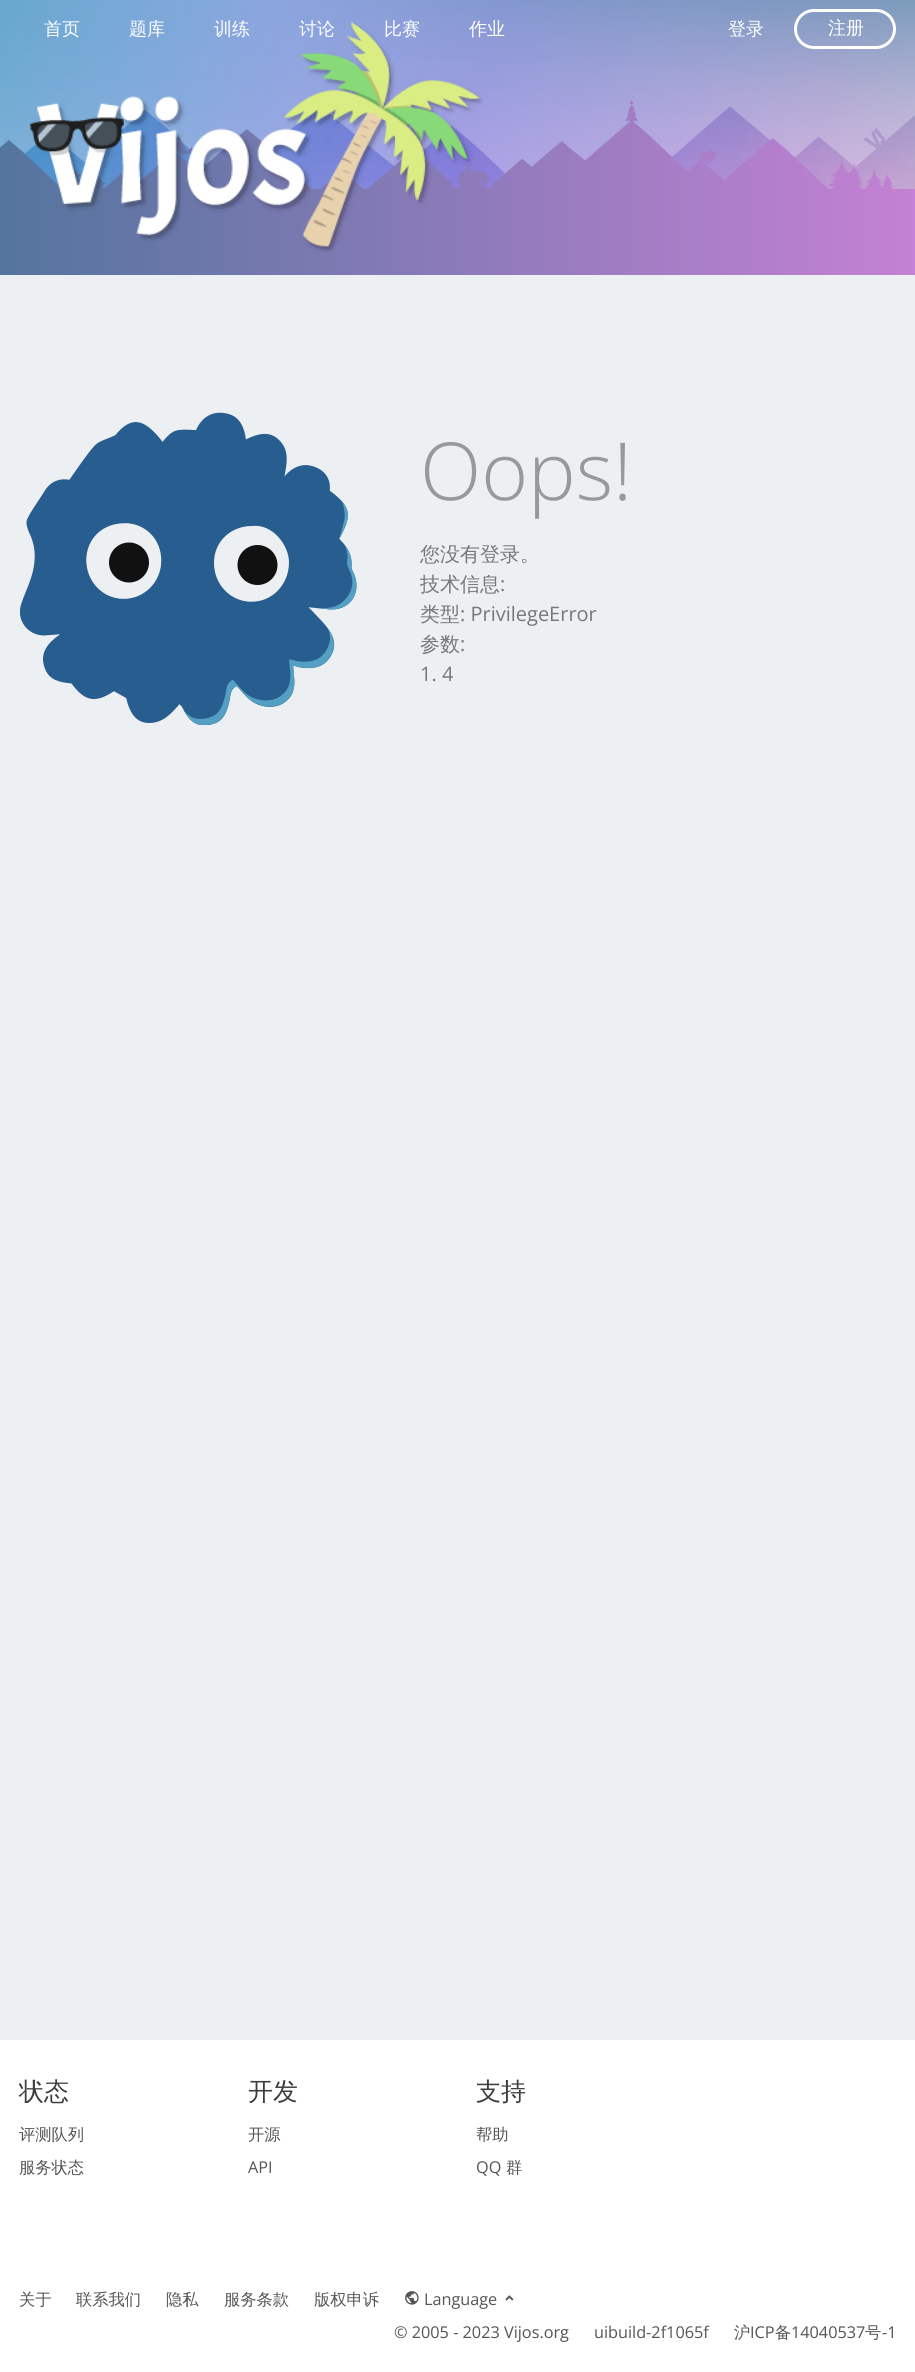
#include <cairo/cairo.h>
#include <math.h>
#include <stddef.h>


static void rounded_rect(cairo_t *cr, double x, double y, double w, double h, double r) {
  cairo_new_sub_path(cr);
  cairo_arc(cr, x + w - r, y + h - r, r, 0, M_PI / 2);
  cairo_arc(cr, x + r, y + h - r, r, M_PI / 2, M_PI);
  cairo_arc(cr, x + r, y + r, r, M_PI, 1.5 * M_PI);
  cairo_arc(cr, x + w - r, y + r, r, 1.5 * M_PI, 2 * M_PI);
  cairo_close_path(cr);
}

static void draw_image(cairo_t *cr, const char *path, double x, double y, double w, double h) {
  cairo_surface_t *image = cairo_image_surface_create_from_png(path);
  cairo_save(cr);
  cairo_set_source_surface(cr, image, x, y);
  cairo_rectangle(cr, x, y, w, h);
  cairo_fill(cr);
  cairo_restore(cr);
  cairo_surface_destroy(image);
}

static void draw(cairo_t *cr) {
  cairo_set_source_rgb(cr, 237 / 255.0, 240 / 255.0, 242 / 255.0);
  cairo_paint(cr);
  draw_image(cr, "images/1.png", 0, 0, 915, 275);
  rounded_rect(cr, 795.5, 10.5, 99, 37, 18.5);
  cairo_set_source_rgb(cr, 1, 1, 1);
  cairo_set_line_width(cr, 3);
  cairo_stroke(cr);
  draw_image(cr, "images/2.png", 29, 22, 454, 231);
  draw_image(cr, "images/3.png", 20, 412, 337, 313);
  cairo_rectangle(cr, 0, 2040, 915, 332);
  cairo_fill(cr);
  draw_image(cr, "images/4.png", 405, 2291, 14, 14);
  draw_image(cr, "images/5.png", 505, 2295, 9, 6);
  cairo_select_font_face(cr, "WenQuanYi Zen Hei Medium", CAIRO_FONT_SLANT_NORMAL, CAIRO_FONT_WEIGHT_NORMAL);
  cairo_set_font_size(cr, 18);
  cairo_move_to(cr, 44, 35);
  cairo_show_text(cr, "首页");
  cairo_move_to(cr, 129, 35);
  cairo_show_text(cr, "题库");
  cairo_move_to(cr, 214, 35);
  cairo_show_text(cr, "训练");
  cairo_move_to(cr, 299, 35);
  cairo_show_text(cr, "讨论");
  cairo_move_to(cr, 384, 35);
  cairo_show_text(cr, "比赛");
  cairo_move_to(cr, 469, 35);
  cairo_show_text(cr, "作业");
  cairo_move_to(cr, 728, 35);
  cairo_show_text(cr, "登录");
  cairo_move_to(cr, 828, 34);
  cairo_show_text(cr, "注册");
  cairo_select_font_face(cr, "Open Sans Light", CAIRO_FONT_SLANT_NORMAL, CAIRO_FONT_WEIGHT_NORMAL);
  cairo_set_font_size(cr, 80);
  cairo_set_source_rgb(cr, 153 / 255.0, 153 / 255.0, 153 / 255.0);
  cairo_move_to(cr, 420, 500);
  cairo_show_text(cr, "Oops!");
  cairo_select_font_face(cr, "WenQuanYi Zen Hei Medium", CAIRO_FONT_SLANT_NORMAL, CAIRO_FONT_WEIGHT_NORMAL);
  cairo_set_font_size(cr, 20);
  cairo_set_source_rgb(cr, 119 / 255.0, 119 / 255.0, 119 / 255.0);
  cairo_move_to(cr, 420, 561);
  cairo_show_text(cr, "您没有登录。");
  cairo_move_to(cr, 420, 591);
  cairo_show_text(cr, "技术信息");
  cairo_select_font_face(cr, "Open Sans", CAIRO_FONT_SLANT_NORMAL, CAIRO_FONT_WEIGHT_NORMAL);
  cairo_move_to(cr, 500, 591);
  cairo_show_text(cr, ":");
  cairo_select_font_face(cr, "WenQuanYi Zen Hei Medium", CAIRO_FONT_SLANT_NORMAL, CAIRO_FONT_WEIGHT_NORMAL);
  cairo_move_to(cr, 420, 621);
  cairo_show_text(cr, "类型");
  cairo_select_font_face(cr, "Open Sans", CAIRO_FONT_SLANT_NORMAL, CAIRO_FONT_WEIGHT_NORMAL);
  cairo_move_to(cr, 460, 621);
  cairo_show_text(cr, ": PrivilegeError");
  cairo_select_font_face(cr, "WenQuanYi Zen Hei Medium", CAIRO_FONT_SLANT_NORMAL, CAIRO_FONT_WEIGHT_NORMAL);
  cairo_move_to(cr, 420, 651);
  cairo_show_text(cr, "参数");
  cairo_select_font_face(cr, "Open Sans", CAIRO_FONT_SLANT_NORMAL, CAIRO_FONT_WEIGHT_NORMAL);
  cairo_move_to(cr, 460, 651);
  cairo_show_text(cr, ":");
  cairo_move_to(cr, 420, 681);
  cairo_show_text(cr, "1. 4");
  cairo_select_font_face(cr, "WenQuanYi Zen Hei Medium", CAIRO_FONT_SLANT_NORMAL, CAIRO_FONT_WEIGHT_NORMAL);
  cairo_set_font_size(cr, 25);
  cairo_set_source_rgb(cr, 61 / 255.0, 61 / 255.0, 61 / 255.0);
  cairo_move_to(cr, 19, 2100);
  cairo_show_text(cr, "状态");
  cairo_set_font_size(cr, 16.25);
  cairo_set_source_rgb(cr, 85 / 255.0, 85 / 255.0, 85 / 255.0);
  cairo_move_to(cr, 19, 2140);
  cairo_show_text(cr, "评测队列");
  cairo_move_to(cr, 19, 2173);
  cairo_show_text(cr, "服务状态");
  cairo_set_font_size(cr, 25);
  cairo_set_source_rgb(cr, 61 / 255.0, 61 / 255.0, 61 / 255.0);
  cairo_move_to(cr, 248, 2100);
  cairo_show_text(cr, "开发");
  cairo_set_font_size(cr, 16.25);
  cairo_set_source_rgb(cr, 85 / 255.0, 85 / 255.0, 85 / 255.0);
  cairo_move_to(cr, 248, 2140);
  cairo_show_text(cr, "开源");
  cairo_select_font_face(cr, "Open Sans", CAIRO_FONT_SLANT_NORMAL, CAIRO_FONT_WEIGHT_NORMAL);
  cairo_move_to(cr, 248, 2173);
  cairo_show_text(cr, "API");
  cairo_select_font_face(cr, "WenQuanYi Zen Hei Medium", CAIRO_FONT_SLANT_NORMAL, CAIRO_FONT_WEIGHT_NORMAL);
  cairo_set_font_size(cr, 25);
  cairo_set_source_rgb(cr, 61 / 255.0, 61 / 255.0, 61 / 255.0);
  cairo_move_to(cr, 476, 2100);
  cairo_show_text(cr, "支持");
  cairo_set_font_size(cr, 16.25);
  cairo_set_source_rgb(cr, 85 / 255.0, 85 / 255.0, 85 / 255.0);
  cairo_move_to(cr, 476, 2140);
  cairo_show_text(cr, "帮助");
  cairo_select_font_face(cr, "Open Sans", CAIRO_FONT_SLANT_NORMAL, CAIRO_FONT_WEIGHT_NORMAL);
  cairo_move_to(cr, 476, 2173);
  cairo_show_text(cr, "QQ");
  cairo_select_font_face(cr, "WenQuanYi Zen Hei Medium", CAIRO_FONT_SLANT_NORMAL, CAIRO_FONT_WEIGHT_NORMAL);
  cairo_move_to(cr, 506, 2173);
  cairo_show_text(cr, "群");
  cairo_move_to(cr, 19, 2305);
  cairo_show_text(cr, "关于");
  cairo_move_to(cr, 76, 2305);
  cairo_show_text(cr, "联系我们");
  cairo_move_to(cr, 166, 2305);
  cairo_show_text(cr, "隐私");
  cairo_move_to(cr, 224, 2305);
  cairo_show_text(cr, "服务条款");
  cairo_move_to(cr, 314, 2305);
  cairo_show_text(cr, "版权申诉");
  cairo_select_font_face(cr, "Open Sans", CAIRO_FONT_SLANT_NORMAL, CAIRO_FONT_WEIGHT_NORMAL);
  cairo_move_to(cr, 424, 2305);
  cairo_show_text(cr, "Language");
  cairo_move_to(cr, 394, 2338);
  cairo_show_text(cr, "© 2005 - 2023 Vijos.org");
  cairo_move_to(cr, 594, 2338);
  cairo_show_text(cr, "uibuild-2f1065f");
  cairo_select_font_face(cr, "WenQuanYi Zen Hei Medium", CAIRO_FONT_SLANT_NORMAL, CAIRO_FONT_WEIGHT_NORMAL);
  cairo_move_to(cr, 734, 2338);
  cairo_show_text(cr, "沪");
  cairo_select_font_face(cr, "Open Sans", CAIRO_FONT_SLANT_NORMAL, CAIRO_FONT_WEIGHT_NORMAL);
  cairo_move_to(cr, 750, 2338);
  cairo_show_text(cr, "ICP");
  cairo_select_font_face(cr, "WenQuanYi Zen Hei Medium", CAIRO_FONT_SLANT_NORMAL, CAIRO_FONT_WEIGHT_NORMAL);
  cairo_move_to(cr, 775, 2338);
  cairo_show_text(cr, "备");
  cairo_select_font_face(cr, "Open Sans", CAIRO_FONT_SLANT_NORMAL, CAIRO_FONT_WEIGHT_NORMAL);
  cairo_move_to(cr, 791, 2338);
  cairo_show_text(cr, "14040537");
  cairo_select_font_face(cr, "WenQuanYi Zen Hei Medium", CAIRO_FONT_SLANT_NORMAL, CAIRO_FONT_WEIGHT_NORMAL);
  cairo_move_to(cr, 865, 2338);
  cairo_show_text(cr, "号");
  cairo_select_font_face(cr, "Open Sans", CAIRO_FONT_SLANT_NORMAL, CAIRO_FONT_WEIGHT_NORMAL);
  cairo_move_to(cr, 882, 2338);
  cairo_show_text(cr, "-1");
}

int main(void) {
  cairo_surface_t *surface = cairo_image_surface_create(CAIRO_FORMAT_RGB24, 915, 2372);
  cairo_t *cr = cairo_create(surface);
  cairo_font_options_t *options = cairo_font_options_create();
  cairo_font_options_set_hint_metrics(options, CAIRO_HINT_METRICS_OFF);
  cairo_font_options_set_hint_style(options, CAIRO_HINT_STYLE_NONE);
  cairo_set_font_options(cr, options);
  cairo_set_miter_limit(cr, 4);
  draw(cr);
  cairo_surface_write_to_png(surface, "out.png");
  cairo_font_options_destroy(options);
  cairo_destroy(cr);
  cairo_surface_destroy(surface);
  return 0;
}
